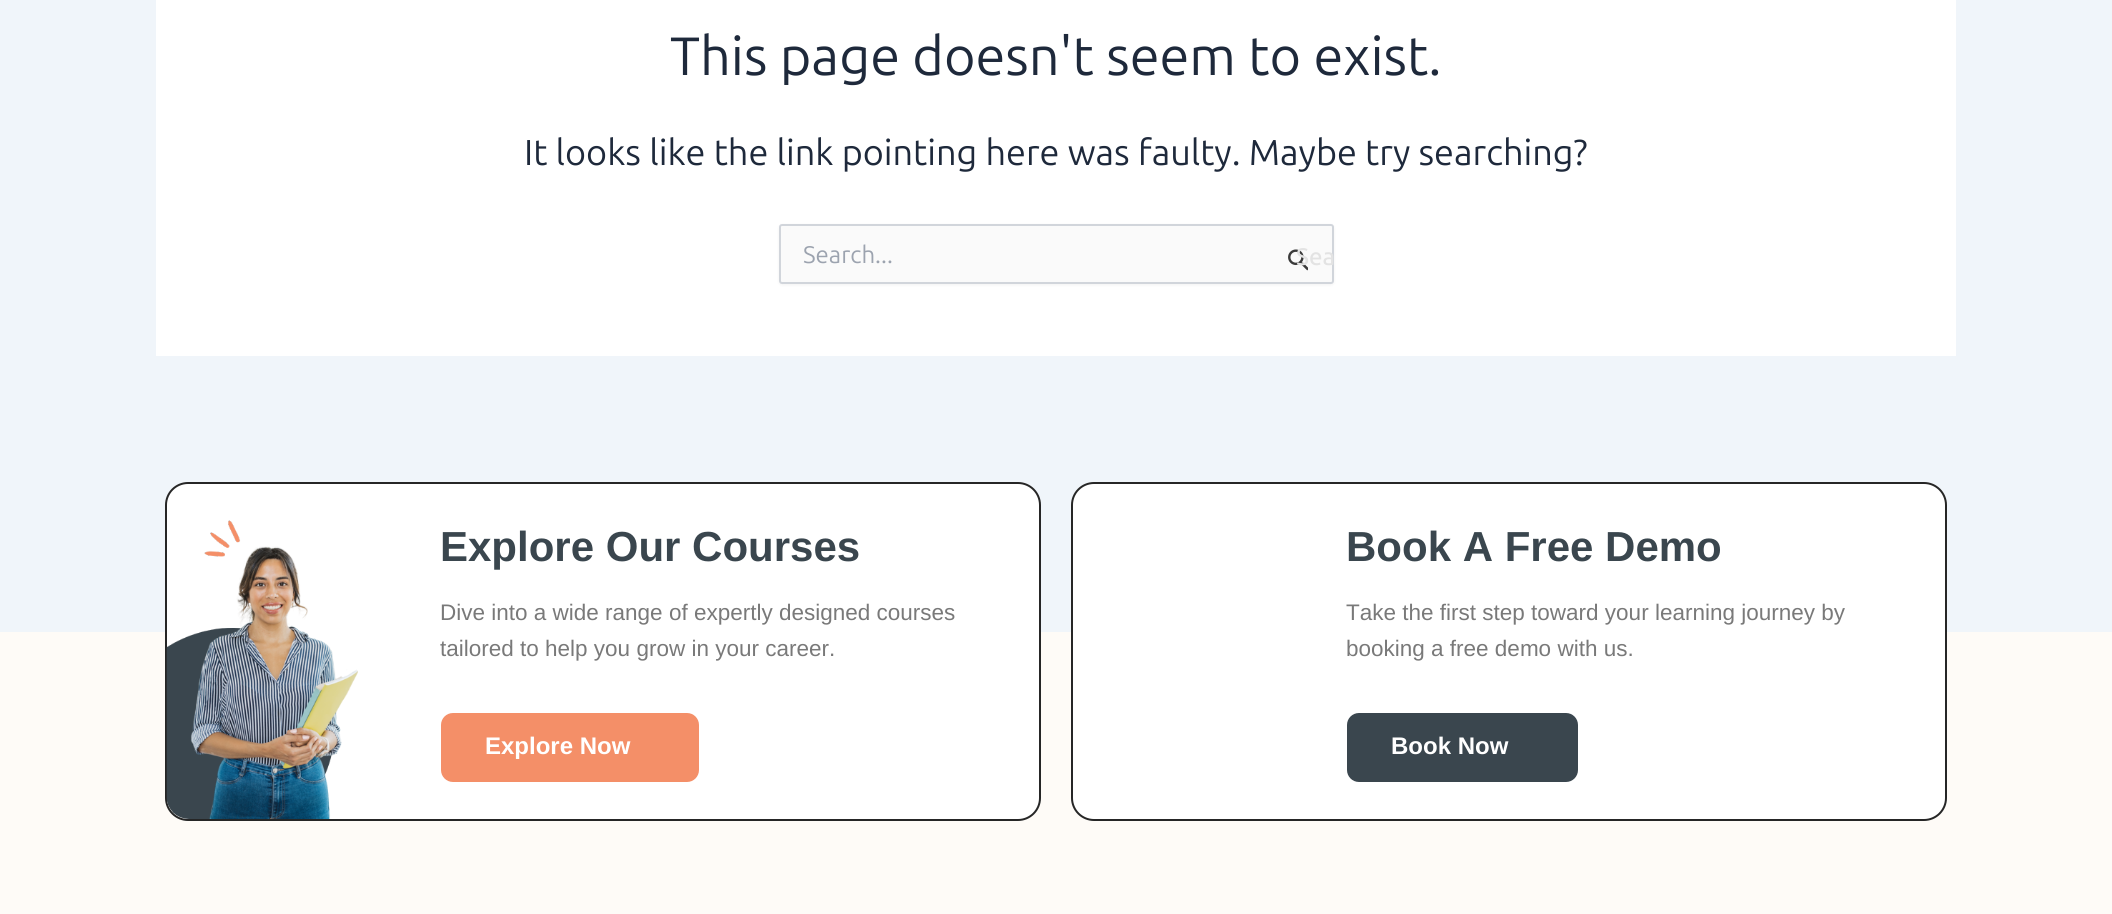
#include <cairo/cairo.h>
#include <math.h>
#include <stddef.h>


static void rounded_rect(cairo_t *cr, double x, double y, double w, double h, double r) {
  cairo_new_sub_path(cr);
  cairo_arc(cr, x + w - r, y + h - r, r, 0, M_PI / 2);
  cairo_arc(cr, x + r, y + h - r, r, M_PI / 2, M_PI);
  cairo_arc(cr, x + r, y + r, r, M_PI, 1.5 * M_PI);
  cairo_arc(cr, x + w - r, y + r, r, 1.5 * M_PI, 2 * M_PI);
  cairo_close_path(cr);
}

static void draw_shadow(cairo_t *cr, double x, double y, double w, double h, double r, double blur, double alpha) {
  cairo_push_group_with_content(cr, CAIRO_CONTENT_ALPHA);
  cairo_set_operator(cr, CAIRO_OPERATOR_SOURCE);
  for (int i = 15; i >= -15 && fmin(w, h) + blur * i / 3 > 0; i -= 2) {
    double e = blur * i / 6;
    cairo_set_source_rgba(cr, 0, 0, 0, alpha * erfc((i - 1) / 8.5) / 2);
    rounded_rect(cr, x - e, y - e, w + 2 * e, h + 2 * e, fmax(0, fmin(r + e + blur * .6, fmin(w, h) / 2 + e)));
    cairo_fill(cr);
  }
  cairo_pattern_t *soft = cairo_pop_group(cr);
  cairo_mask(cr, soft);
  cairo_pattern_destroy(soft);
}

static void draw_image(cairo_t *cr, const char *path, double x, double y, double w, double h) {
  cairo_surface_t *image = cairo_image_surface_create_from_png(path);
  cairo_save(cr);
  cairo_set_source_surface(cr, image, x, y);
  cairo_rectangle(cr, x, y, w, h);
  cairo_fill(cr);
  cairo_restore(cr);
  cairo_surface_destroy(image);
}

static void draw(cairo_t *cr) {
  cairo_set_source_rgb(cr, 240 / 255.0, 245 / 255.0, 250 / 255.0);
  cairo_paint(cr);
  cairo_set_source_rgb(cr, 1, 1, 1);
  cairo_rectangle(cr, 156, 0, 1800, 356);
  cairo_fill(cr);
  cairo_set_source_rgb(cr, 0, 0, 0);
  draw_shadow(cr, 779, 225, 555, 60, 3, 1.5, 0.05);
  cairo_set_source_rgb(cr, 250 / 255.0, 250 / 255.0, 250 / 255.0);
  rounded_rect(cr, 780, 225, 553, 58, 2);
  cairo_fill_preserve(cr);
  cairo_set_source_rgb(cr, 209 / 255.0, 213 / 255.0, 219 / 255.0);
  cairo_stroke(cr);
  draw_image(cr, "images/1.png", 1288, 249, 20, 22);
  cairo_set_source_rgb(cr, 254 / 255.0, 251 / 255.0, 247 / 255.0);
  cairo_rectangle(cr, 0, 632, 2112, 282);
  cairo_fill(cr);
  cairo_set_source_rgb(cr, 1, 1, 1);
  rounded_rect(cr, 165, 482, 876, 339, 23);
  cairo_fill(cr);
  rounded_rect(cr, 166, 483, 874, 337, 22);
  cairo_set_source_rgba(cr, 0, 0, 0, 0.85);
  cairo_stroke(cr);
  draw_image(cr, "images/2.png", 166, 520, 192, 299);
  cairo_set_source_rgb(cr, 244 / 255.0, 143 / 255.0, 104 / 255.0);
  rounded_rect(cr, 441, 713, 258, 69, 12);
  cairo_fill(cr);
  cairo_set_source_rgb(cr, 1, 1, 1);
  rounded_rect(cr, 1071, 482, 876, 339, 23);
  cairo_fill(cr);
  rounded_rect(cr, 1072, 483, 874, 337, 22);
  cairo_set_source_rgba(cr, 0, 0, 0, 0.85);
  cairo_stroke(cr);
  cairo_set_source_rgb(cr, 58 / 255.0, 70 / 255.0, 78 / 255.0);
  rounded_rect(cr, 1347, 713, 231, 69, 12);
  cairo_fill(cr);
  cairo_select_font_face(cr, "Ubuntu", CAIRO_FONT_SLANT_NORMAL, CAIRO_FONT_WEIGHT_NORMAL);
  cairo_set_font_size(cr, 54);
  cairo_set_source_rgb(cr, 30 / 255.0, 41 / 255.0, 59 / 255.0);
  cairo_move_to(cr, 670, 75);
  cairo_show_text(cr, "This page doesn't seem to exist.");
  cairo_set_font_size(cr, 36);
  cairo_move_to(cr, 524, 165);
  cairo_show_text(cr, "It looks like the link pointing here was faulty. Maybe try searching?");
  cairo_set_font_size(cr, 24);
  cairo_set_source_rgb(cr, 156 / 255.0, 163 / 255.0, 175 / 255.0);
  cairo_move_to(cr, 803, 263);
  cairo_show_text(cr, "Search...");
  cairo_select_font_face(cr, "Ubuntu Medium", CAIRO_FONT_SLANT_NORMAL, CAIRO_FONT_WEIGHT_NORMAL);
  cairo_set_source_rgb(cr, 227 / 255.0, 227 / 255.0, 227 / 255.0);
  cairo_move_to(cr, 1296, 265);
  cairo_show_text(cr, "Sea");
  cairo_select_font_face(cr, "Liberation Sans", CAIRO_FONT_SLANT_NORMAL, CAIRO_FONT_WEIGHT_BOLD);
  cairo_set_font_size(cr, 42);
  cairo_set_source_rgb(cr, 58 / 255.0, 70 / 255.0, 78 / 255.0);
  cairo_move_to(cr, 440, 561);
  cairo_show_text(cr, "Explore Our Courses");
  cairo_select_font_face(cr, "Liberation Sans", CAIRO_FONT_SLANT_NORMAL, CAIRO_FONT_WEIGHT_NORMAL);
  cairo_set_font_size(cr, 22.5);
  cairo_set_source_rgb(cr, 121 / 255.0, 121 / 255.0, 121 / 255.0);
  cairo_move_to(cr, 440, 620);
  cairo_show_text(cr, "Dive into a wide range of expertly designed courses");
  cairo_move_to(cr, 440, 656);
  cairo_show_text(cr, "tailored to help you grow in your career.");
  cairo_select_font_face(cr, "Liberation Sans", CAIRO_FONT_SLANT_NORMAL, CAIRO_FONT_WEIGHT_BOLD);
  cairo_set_font_size(cr, 24);
  cairo_set_source_rgb(cr, 1, 1, 1);
  cairo_move_to(cr, 485, 754);
  cairo_show_text(cr, "Explore Now");
  cairo_set_font_size(cr, 42);
  cairo_set_source_rgb(cr, 58 / 255.0, 70 / 255.0, 78 / 255.0);
  cairo_move_to(cr, 1346, 561);
  cairo_show_text(cr, "Book A Free Demo");
  cairo_select_font_face(cr, "Liberation Sans", CAIRO_FONT_SLANT_NORMAL, CAIRO_FONT_WEIGHT_NORMAL);
  cairo_set_font_size(cr, 22.5);
  cairo_set_source_rgb(cr, 121 / 255.0, 121 / 255.0, 121 / 255.0);
  cairo_move_to(cr, 1346, 620);
  cairo_show_text(cr, "Take the first step toward your learning journey by");
  cairo_move_to(cr, 1346, 656);
  cairo_show_text(cr, "booking a free demo with us.");
  cairo_select_font_face(cr, "Liberation Sans", CAIRO_FONT_SLANT_NORMAL, CAIRO_FONT_WEIGHT_BOLD);
  cairo_set_font_size(cr, 24);
  cairo_set_source_rgb(cr, 1, 1, 1);
  cairo_move_to(cr, 1391, 754);
  cairo_show_text(cr, "Book Now");
}

int main(void) {
  cairo_surface_t *surface = cairo_image_surface_create(CAIRO_FORMAT_RGB24, 2112, 914);
  cairo_t *cr = cairo_create(surface);
  cairo_font_options_t *options = cairo_font_options_create();
  cairo_font_options_set_hint_metrics(options, CAIRO_HINT_METRICS_OFF);
  cairo_font_options_set_hint_style(options, CAIRO_HINT_STYLE_NONE);
  cairo_set_font_options(cr, options);
  cairo_set_miter_limit(cr, 4);
  draw(cr);
  cairo_surface_write_to_png(surface, "out.png");
  cairo_font_options_destroy(options);
  cairo_destroy(cr);
  cairo_surface_destroy(surface);
  return 0;
}
